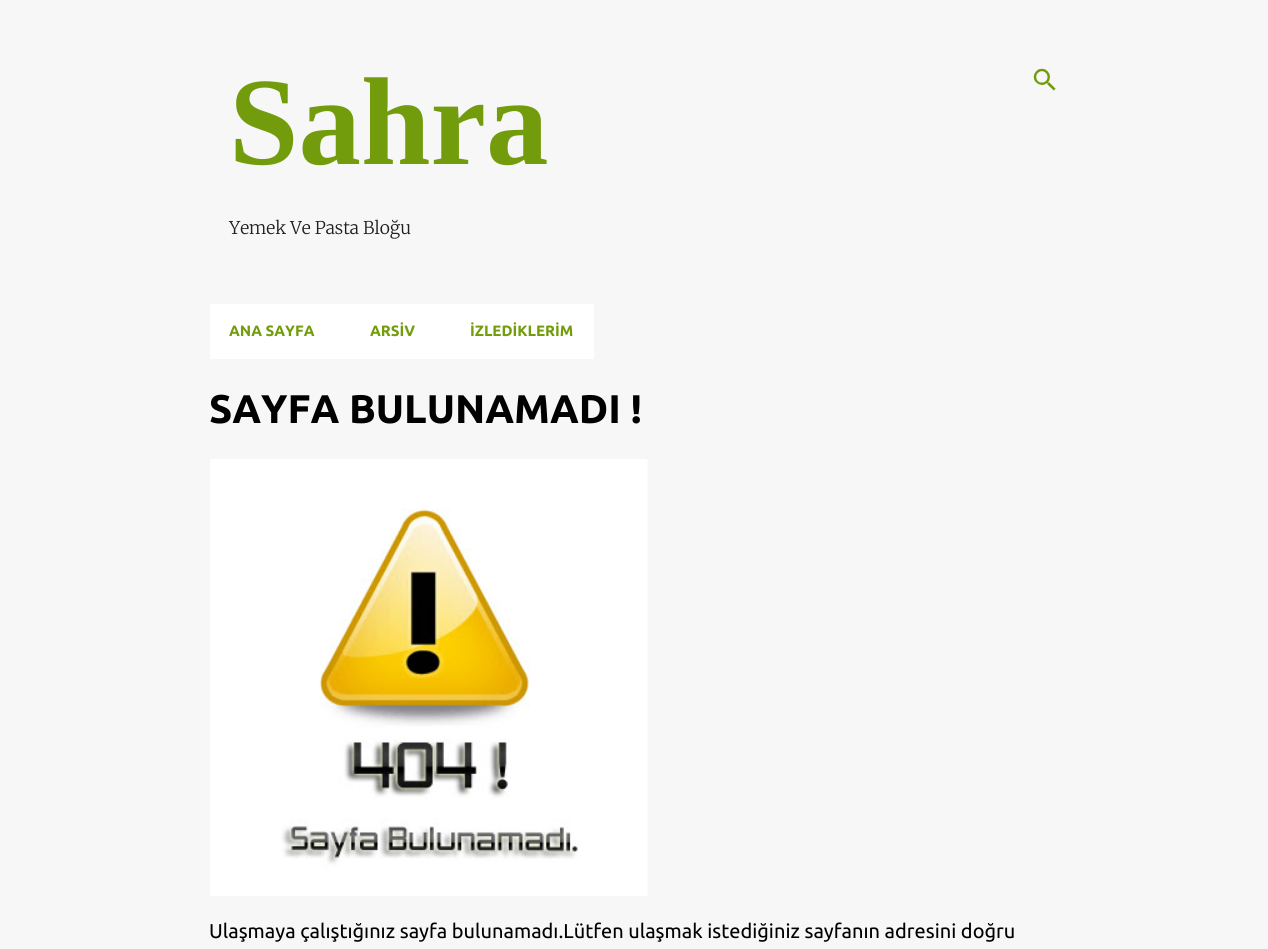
#include <cairo/cairo.h>
#include <math.h>
#include <stddef.h>


static void draw_image(cairo_t *cr, const char *path, double x, double y, double w, double h) {
  cairo_surface_t *image = cairo_image_surface_create_from_png(path);
  cairo_save(cr);
  cairo_set_source_surface(cr, image, x, y);
  cairo_rectangle(cr, x, y, w, h);
  cairo_fill(cr);
  cairo_restore(cr);
  cairo_surface_destroy(image);
}

static void draw(cairo_t *cr) {
  cairo_set_source_rgb(cr, 247 / 255.0, 247 / 255.0, 247 / 255.0);
  cairo_paint(cr);
  draw_image(cr, "images/1.png", 1033, 68, 23, 23);
  cairo_set_source_rgb(cr, 1, 1, 1);
  cairo_rectangle(cr, 210, 304, 384, 55);
  cairo_fill(cr);
  draw_image(cr, "images/2.png", 210, 459, 438, 437);
  cairo_select_font_face(cr, "Liberation Serif", CAIRO_FONT_SLANT_NORMAL, CAIRO_FONT_WEIGHT_BOLD);
  cairo_set_font_size(cr, 125);
  cairo_set_source_rgb(cr, 114 / 255.0, 156 / 255.0, 11 / 255.0);
  cairo_move_to(cr, 229, 164);
  cairo_show_text(cr, "Sahra");
  cairo_select_font_face(cr, "Merriweather Light", CAIRO_FONT_SLANT_NORMAL, CAIRO_FONT_WEIGHT_NORMAL);
  cairo_set_font_size(cr, 17.5);
  cairo_set_source_rgb(cr, 31 / 255.0, 31 / 255.0, 31 / 255.0);
  cairo_move_to(cr, 229, 234);
  cairo_show_text(cr, "Yemek Ve Pasta Bloğu");
  cairo_select_font_face(cr, "Ubuntu", CAIRO_FONT_SLANT_NORMAL, CAIRO_FONT_WEIGHT_BOLD);
  cairo_set_font_size(cr, 15);
  cairo_set_source_rgb(cr, 114 / 255.0, 156 / 255.0, 11 / 255.0);
  cairo_move_to(cr, 229, 336);
  cairo_show_text(cr, "ANA SAYFA");
  cairo_move_to(cr, 370, 336);
  cairo_show_text(cr, "ARSİV");
  cairo_move_to(cr, 470, 336);
  cairo_show_text(cr, "İZLEDİKLERİM");
  cairo_set_font_size(cr, 40);
  cairo_set_source_rgb(cr, 0, 0, 0);
  cairo_move_to(cr, 209, 423);
  cairo_show_text(cr, "SAYFA BULUNAMADI !");
  cairo_select_font_face(cr, "Ubuntu", CAIRO_FONT_SLANT_NORMAL, CAIRO_FONT_WEIGHT_NORMAL);
  cairo_set_font_size(cr, 20);
  cairo_move_to(cr, 209, 938);
  cairo_show_text(cr, "Ulaşmaya çalıştığınız sayfa bulunamadı.Lütfen ulaşmak istediğiniz sayfanın adresini doğru");
}

int main(void) {
  cairo_surface_t *surface = cairo_image_surface_create(CAIRO_FORMAT_RGB24, 1268, 949);
  cairo_t *cr = cairo_create(surface);
  cairo_font_options_t *options = cairo_font_options_create();
  cairo_font_options_set_hint_metrics(options, CAIRO_HINT_METRICS_OFF);
  cairo_font_options_set_hint_style(options, CAIRO_HINT_STYLE_NONE);
  cairo_set_font_options(cr, options);
  cairo_set_miter_limit(cr, 4);
  draw(cr);
  cairo_surface_write_to_png(surface, "out.png");
  cairo_font_options_destroy(options);
  cairo_destroy(cr);
  cairo_surface_destroy(surface);
  return 0;
}
